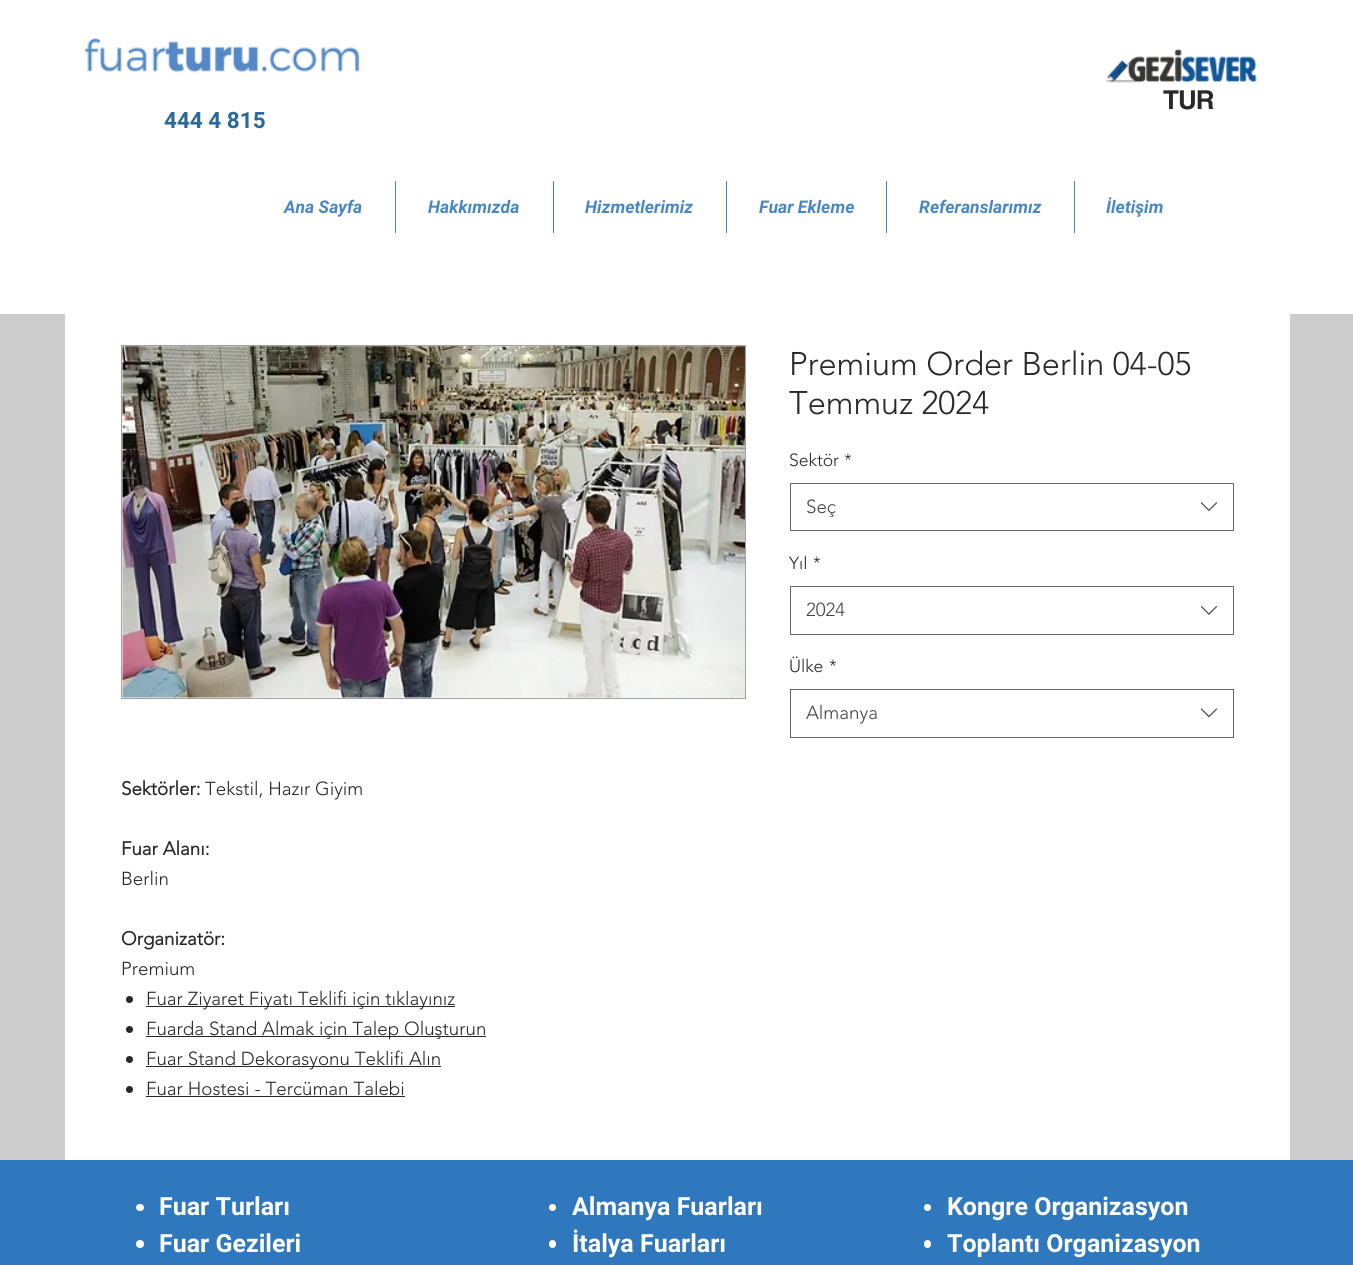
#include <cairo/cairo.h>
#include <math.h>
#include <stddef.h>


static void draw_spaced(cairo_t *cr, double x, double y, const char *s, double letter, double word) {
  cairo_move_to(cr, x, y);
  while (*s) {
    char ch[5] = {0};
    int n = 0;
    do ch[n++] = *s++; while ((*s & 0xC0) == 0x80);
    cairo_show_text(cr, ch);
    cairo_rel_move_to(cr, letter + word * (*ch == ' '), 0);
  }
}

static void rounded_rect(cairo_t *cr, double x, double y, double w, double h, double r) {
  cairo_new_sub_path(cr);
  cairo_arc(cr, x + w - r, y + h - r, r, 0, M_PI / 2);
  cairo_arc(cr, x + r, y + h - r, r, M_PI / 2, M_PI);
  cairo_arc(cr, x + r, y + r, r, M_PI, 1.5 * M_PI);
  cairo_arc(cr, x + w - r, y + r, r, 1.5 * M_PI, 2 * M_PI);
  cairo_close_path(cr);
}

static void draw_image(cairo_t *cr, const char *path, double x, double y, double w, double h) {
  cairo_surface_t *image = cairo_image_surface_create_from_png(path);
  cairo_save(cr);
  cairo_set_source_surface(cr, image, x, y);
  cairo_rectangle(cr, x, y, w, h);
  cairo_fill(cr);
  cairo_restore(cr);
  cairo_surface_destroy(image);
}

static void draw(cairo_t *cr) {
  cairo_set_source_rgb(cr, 204 / 255.0, 204 / 255.0, 204 / 255.0);
  cairo_paint(cr);
  cairo_set_source_rgb(cr, 1, 1, 1);
  cairo_rectangle(cr, 0, 0, 1353, 314);
  cairo_fill(cr);
  draw_image(cr, "images/1.png", 84, 38, 276, 35);
  draw_image(cr, "images/2.png", 1105, 48, 152, 35);
  cairo_set_source_rgb(cr, 74 / 255.0, 135 / 255.0, 194 / 255.0);
  cairo_rectangle(cr, 395, 181, 1, 52);
  cairo_fill(cr);
  cairo_rectangle(cr, 553, 181, 1, 52);
  cairo_fill(cr);
  cairo_rectangle(cr, 726, 181, 1, 52);
  cairo_fill(cr);
  cairo_rectangle(cr, 886, 181, 1, 52);
  cairo_fill(cr);
  cairo_rectangle(cr, 1074, 181, 1, 52);
  cairo_fill(cr);
  cairo_set_source_rgb(cr, 1, 1, 1);
  cairo_rectangle(cr, 65, 314, 1225, 846);
  cairo_fill(cr);
  cairo_rectangle(cr, 790.5, 483.5, 443, 47);
  cairo_set_source_rgb(cr, 102 / 255.0, 102 / 255.0, 102 / 255.0);
  cairo_set_line_width(cr, 1);
  cairo_stroke(cr);
  draw_image(cr, "images/3.png", 1200, 502, 18, 10);
  cairo_rectangle(cr, 790.5, 586.5, 443, 48);
  cairo_stroke(cr);
  draw_image(cr, "images/4.png", 1200, 605, 18, 10);
  cairo_rectangle(cr, 790.5, 689.5, 443, 48);
  cairo_stroke(cr);
  draw_image(cr, "images/5.png", 1200, 708, 18, 10);
  cairo_rectangle(cr, 121.5, 345.5, 624, 353);
  cairo_set_source_rgb(cr, 160 / 255.0, 160 / 255.0, 159 / 255.0);
  cairo_stroke(cr);
  draw_image(cr, "images/6.png", 122, 346, 623, 352);
  cairo_set_source_rgb(cr, 40 / 255.0, 40 / 255.0, 40 / 255.0);
  cairo_arc(cr, 129.5, 999.5, 3.5, 0, 2 * M_PI);
  cairo_fill(cr);
  cairo_rectangle(cr, 146, 1006, 309, 1);
  cairo_fill(cr);
  cairo_arc(cr, 129.5, 1029.5, 3.5, 0, 2 * M_PI);
  cairo_fill(cr);
  cairo_rectangle(cr, 146, 1036, 340, 1);
  cairo_fill(cr);
  cairo_arc(cr, 129.5, 1059.5, 3.5, 0, 2 * M_PI);
  cairo_fill(cr);
  cairo_rectangle(cr, 146, 1066, 295, 1);
  cairo_fill(cr);
  cairo_arc(cr, 129.5, 1089.5, 3.5, 0, 2 * M_PI);
  cairo_fill(cr);
  cairo_rectangle(cr, 146, 1096, 259, 1);
  cairo_fill(cr);
  cairo_set_source_rgb(cr, 48 / 255.0, 120 / 255.0, 190 / 255.0);
  cairo_rectangle(cr, 0, 1160, 1353, 105);
  cairo_fill(cr);
  cairo_set_source_rgb(cr, 1, 1, 1);
  rounded_rect(cr, 136, 1204, 8, 7, 3.5);
  cairo_fill(cr);
  cairo_arc(cr, 140, 1244, 4, 0, 2 * M_PI);
  cairo_fill(cr);
  cairo_arc(cr, 552.5, 1207.5, 3.5, 0, 2 * M_PI);
  cairo_fill(cr);
  rounded_rect(cr, 549, 1240, 7, 8, 3.5);
  cairo_fill(cr);
  cairo_arc(cr, 927.5, 1207.5, 3.5, 0, 2 * M_PI);
  cairo_fill(cr);
  rounded_rect(cr, 924, 1240, 7, 8, 3.5);
  cairo_fill(cr);
  cairo_select_font_face(cr, "helvetica", CAIRO_FONT_SLANT_NORMAL, CAIRO_FONT_WEIGHT_BOLD);
  cairo_set_font_size(cr, 26);
  cairo_set_source_rgb(cr, 40 / 255.0, 40 / 255.0, 40 / 255.0);
  draw_spaced(cr, 1163, 109, "TUR", -1, 0);
  cairo_select_font_face(cr, "Roboto", CAIRO_FONT_SLANT_NORMAL, CAIRO_FONT_WEIGHT_BOLD);
  cairo_set_font_size(cr, 22.5);
  cairo_set_source_rgb(cr, 43 / 255.0, 104 / 255.0, 156 / 255.0);
  cairo_move_to(cr, 164, 128);
  cairo_show_text(cr, "444 4 815");
  cairo_select_font_face(cr, "Roboto", CAIRO_FONT_SLANT_ITALIC, CAIRO_FONT_WEIGHT_BOLD);
  cairo_set_font_size(cr, 17.5);
  cairo_set_source_rgb(cr, 74 / 255.0, 135 / 255.0, 194 / 255.0);
  cairo_move_to(cr, 284, 213);
  cairo_show_text(cr, "Ana Sayfa");
  cairo_move_to(cr, 428, 213);
  cairo_show_text(cr, "Hakkımızda");
  cairo_move_to(cr, 585, 213);
  cairo_show_text(cr, "Hizmetlerimiz");
  cairo_move_to(cr, 759, 213);
  cairo_show_text(cr, "Fuar Ekleme");
  cairo_move_to(cr, 919, 213);
  cairo_show_text(cr, "Referanslarımız");
  cairo_move_to(cr, 1106, 213);
  cairo_show_text(cr, "İletişim");
  cairo_select_font_face(cr, "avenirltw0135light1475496 Light", CAIRO_FONT_SLANT_NORMAL, CAIRO_FONT_WEIGHT_NORMAL);
  cairo_set_font_size(cr, 32.5);
  cairo_set_source_rgb(cr, 40 / 255.0, 40 / 255.0, 40 / 255.0);
  cairo_move_to(cr, 789, 375);
  cairo_show_text(cr, "Premium Order Berlin 04-05");
  cairo_move_to(cr, 789, 414);
  cairo_show_text(cr, "Temmuz 2024");
  cairo_set_font_size(cr, 17.5);
  cairo_move_to(cr, 789, 466);
  cairo_show_text(cr, "Sektör");
  cairo_move_to(cr, 844, 466);
  cairo_show_text(cr, "*");
  cairo_set_font_size(cr, 18.75);
  cairo_set_source_rgb(cr, 68 / 255.0, 68 / 255.0, 68 / 255.0);
  cairo_move_to(cr, 806, 513);
  cairo_show_text(cr, "Seç");
  cairo_set_font_size(cr, 17.5);
  cairo_set_source_rgb(cr, 40 / 255.0, 40 / 255.0, 40 / 255.0);
  cairo_move_to(cr, 789, 569);
  cairo_show_text(cr, "Yıl");
  cairo_move_to(cr, 813, 569);
  cairo_show_text(cr, "*");
  cairo_set_font_size(cr, 18.75);
  cairo_set_source_rgb(cr, 68 / 255.0, 68 / 255.0, 68 / 255.0);
  cairo_move_to(cr, 806, 616);
  cairo_show_text(cr, "2024");
  cairo_set_font_size(cr, 17.5);
  cairo_set_source_rgb(cr, 40 / 255.0, 40 / 255.0, 40 / 255.0);
  cairo_move_to(cr, 789, 672);
  cairo_show_text(cr, "Ülke");
  cairo_move_to(cr, 829, 672);
  cairo_show_text(cr, "*");
  cairo_set_font_size(cr, 18.75);
  cairo_set_source_rgb(cr, 68 / 255.0, 68 / 255.0, 68 / 255.0);
  cairo_move_to(cr, 806, 719);
  cairo_show_text(cr, "Almanya");
  cairo_select_font_face(cr, "avenirltw0135light1475496", CAIRO_FONT_SLANT_NORMAL, CAIRO_FONT_WEIGHT_BOLD);
  cairo_set_source_rgb(cr, 40 / 255.0, 40 / 255.0, 40 / 255.0);
  cairo_move_to(cr, 121, 795);
  cairo_show_text(cr, "Sektörler:");
  cairo_select_font_face(cr, "avenirltw0135light1475496 Light", CAIRO_FONT_SLANT_NORMAL, CAIRO_FONT_WEIGHT_NORMAL);
  cairo_move_to(cr, 205, 795);
  cairo_show_text(cr, "Tekstil, Hazır Giyim");
  cairo_select_font_face(cr, "avenirltw0135light1475496", CAIRO_FONT_SLANT_NORMAL, CAIRO_FONT_WEIGHT_BOLD);
  cairo_move_to(cr, 121, 855);
  cairo_show_text(cr, "Fuar Alanı:");
  cairo_select_font_face(cr, "avenirltw0135light1475496 Light", CAIRO_FONT_SLANT_NORMAL, CAIRO_FONT_WEIGHT_NORMAL);
  cairo_move_to(cr, 121, 885);
  cairo_show_text(cr, "Berlin");
  cairo_select_font_face(cr, "avenirltw0135light1475496", CAIRO_FONT_SLANT_NORMAL, CAIRO_FONT_WEIGHT_BOLD);
  cairo_move_to(cr, 121, 945);
  cairo_show_text(cr, "Organizatör:");
  cairo_select_font_face(cr, "avenirltw0135light1475496 Light", CAIRO_FONT_SLANT_NORMAL, CAIRO_FONT_WEIGHT_NORMAL);
  cairo_move_to(cr, 121, 975);
  cairo_show_text(cr, "Premium");
  cairo_move_to(cr, 146, 1005);
  cairo_show_text(cr, "Fuar Ziyaret Fiyatı Teklifi için tıklayınız");
  cairo_move_to(cr, 146, 1035);
  cairo_show_text(cr, "Fuarda Stand Almak için Talep Oluşturun");
  cairo_move_to(cr, 146, 1065);
  cairo_show_text(cr, "Fuar Stand Dekorasyonu Teklifi Alın");
  cairo_move_to(cr, 146, 1095);
  cairo_show_text(cr, "Fuar Hostesi - Tercüman Talebi");
  cairo_select_font_face(cr, "Roboto", CAIRO_FONT_SLANT_NORMAL, CAIRO_FONT_WEIGHT_BOLD);
  cairo_set_font_size(cr, 25);
  cairo_set_source_rgb(cr, 1, 1, 1);
  cairo_move_to(cr, 159, 1215);
  cairo_show_text(cr, "Fuar Turları");
  cairo_move_to(cr, 159, 1252);
  cairo_show_text(cr, "Fuar Gezileri");
  cairo_move_to(cr, 572, 1215);
  cairo_show_text(cr, "Almanya Fuarları");
  cairo_move_to(cr, 572, 1252);
  cairo_show_text(cr, "İtalya Fuarları");
  cairo_move_to(cr, 947, 1215);
  cairo_show_text(cr, "Kongre Organizasyon");
  cairo_move_to(cr, 947, 1252);
  cairo_show_text(cr, "Toplantı Organizasyon");
}

int main(void) {
  cairo_surface_t *surface = cairo_image_surface_create(CAIRO_FORMAT_RGB24, 1353, 1265);
  cairo_t *cr = cairo_create(surface);
  cairo_font_options_t *options = cairo_font_options_create();
  cairo_font_options_set_hint_metrics(options, CAIRO_HINT_METRICS_OFF);
  cairo_font_options_set_hint_style(options, CAIRO_HINT_STYLE_NONE);
  cairo_set_font_options(cr, options);
  cairo_set_miter_limit(cr, 4);
  draw(cr);
  cairo_surface_write_to_png(surface, "out.png");
  cairo_font_options_destroy(options);
  cairo_destroy(cr);
  cairo_surface_destroy(surface);
  return 0;
}
